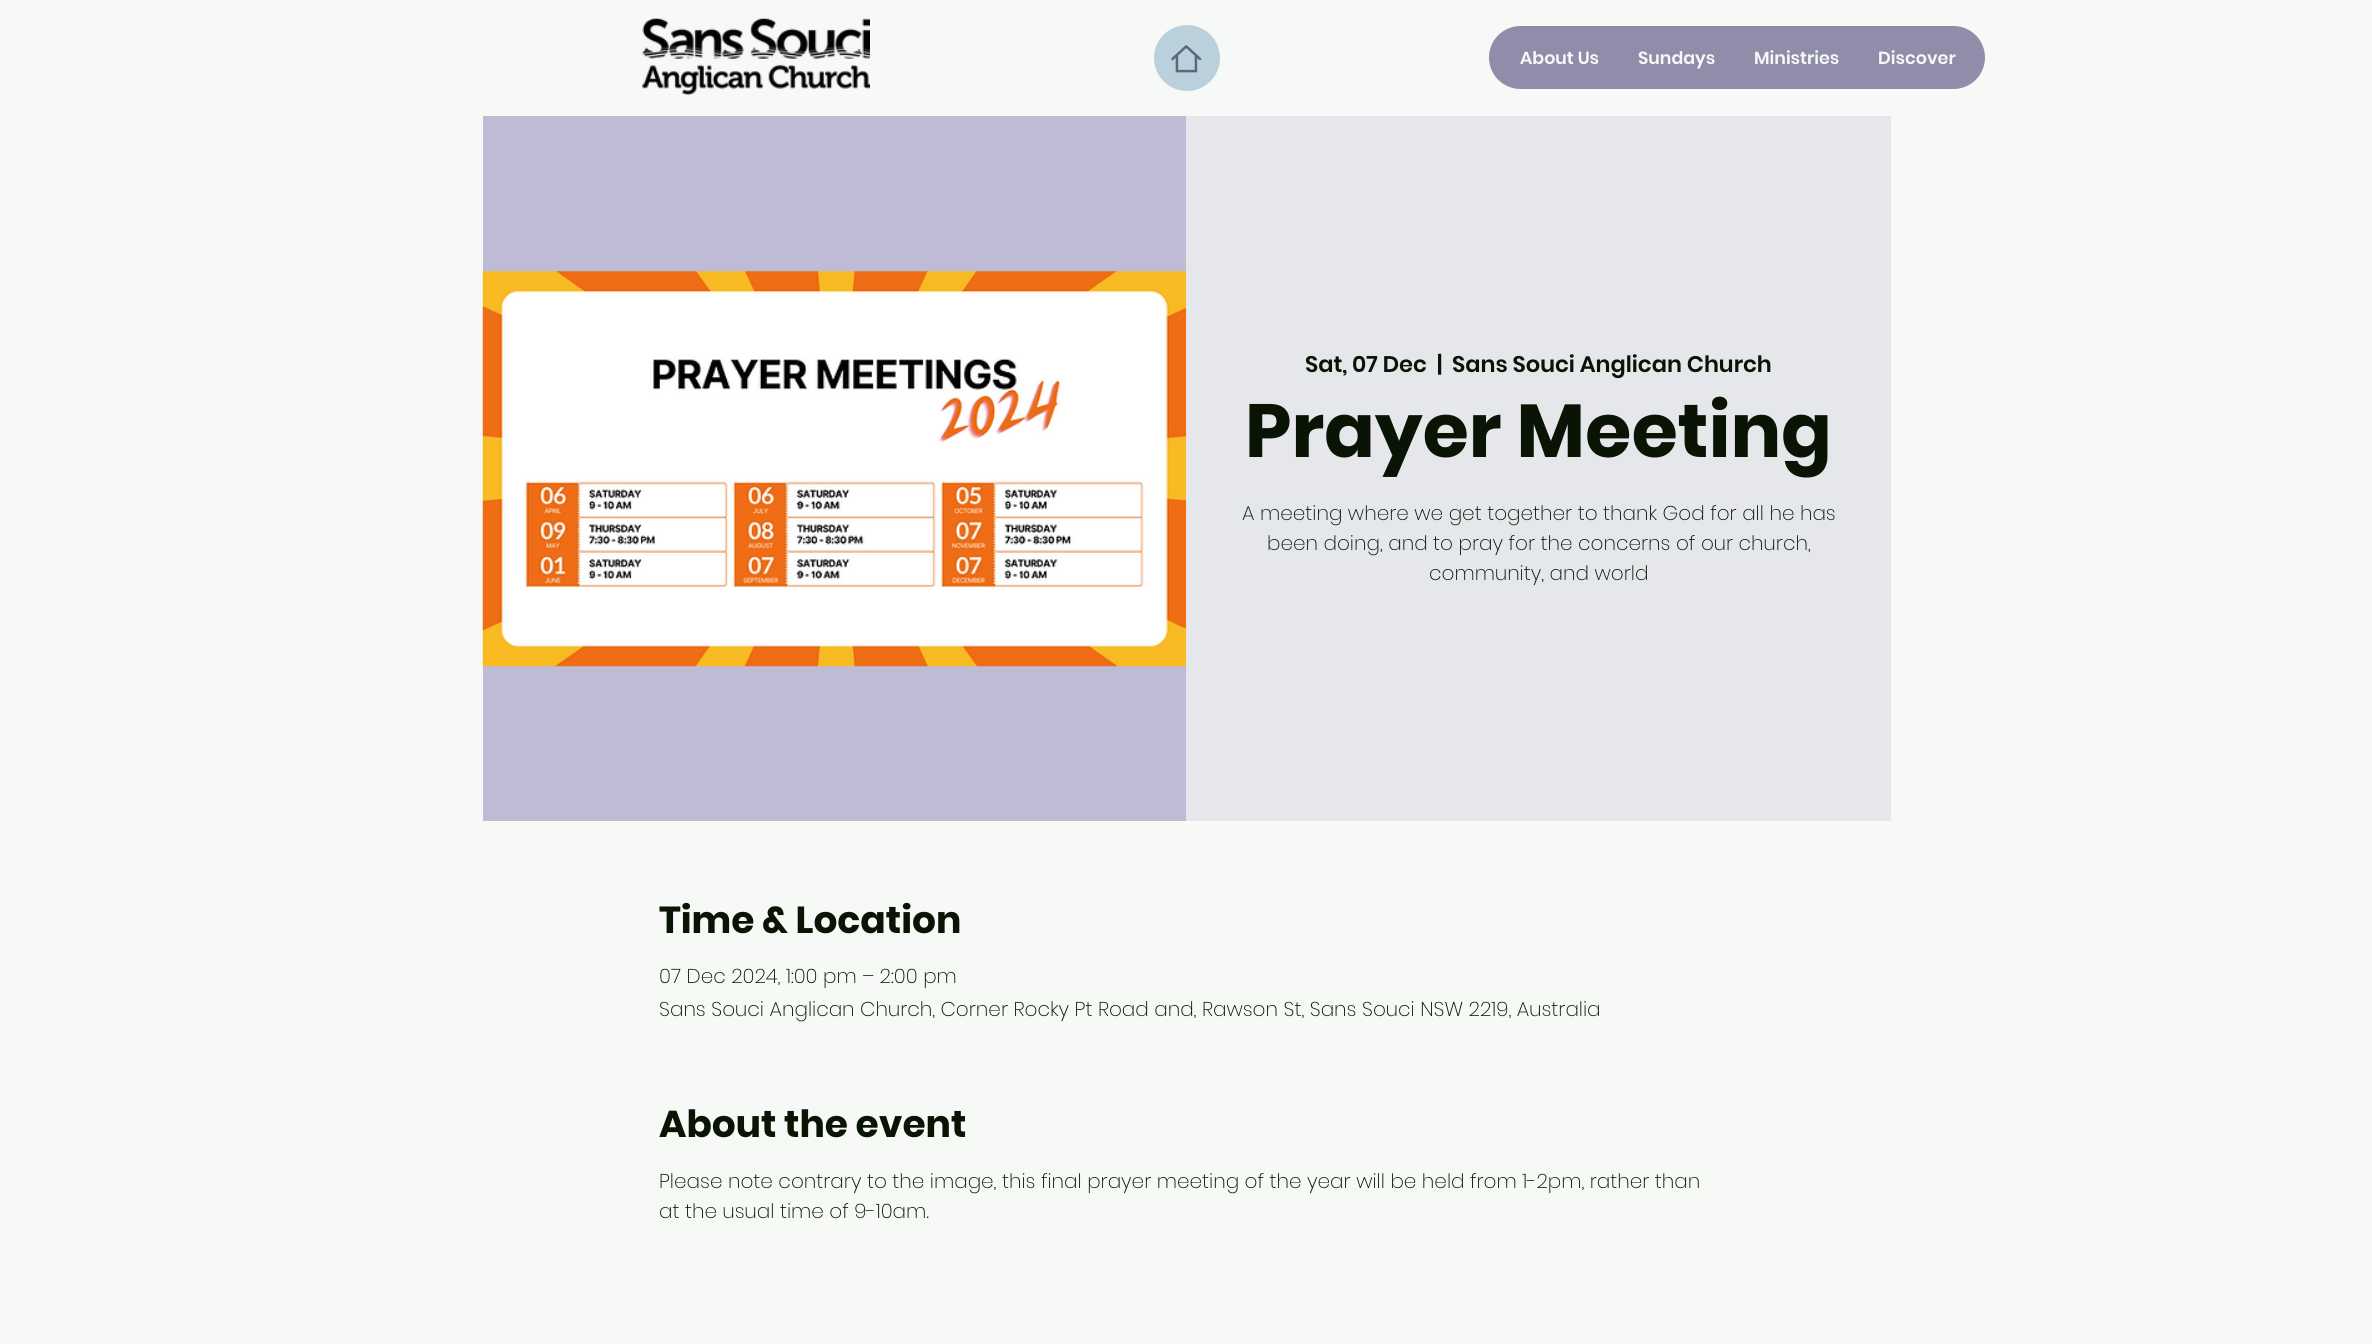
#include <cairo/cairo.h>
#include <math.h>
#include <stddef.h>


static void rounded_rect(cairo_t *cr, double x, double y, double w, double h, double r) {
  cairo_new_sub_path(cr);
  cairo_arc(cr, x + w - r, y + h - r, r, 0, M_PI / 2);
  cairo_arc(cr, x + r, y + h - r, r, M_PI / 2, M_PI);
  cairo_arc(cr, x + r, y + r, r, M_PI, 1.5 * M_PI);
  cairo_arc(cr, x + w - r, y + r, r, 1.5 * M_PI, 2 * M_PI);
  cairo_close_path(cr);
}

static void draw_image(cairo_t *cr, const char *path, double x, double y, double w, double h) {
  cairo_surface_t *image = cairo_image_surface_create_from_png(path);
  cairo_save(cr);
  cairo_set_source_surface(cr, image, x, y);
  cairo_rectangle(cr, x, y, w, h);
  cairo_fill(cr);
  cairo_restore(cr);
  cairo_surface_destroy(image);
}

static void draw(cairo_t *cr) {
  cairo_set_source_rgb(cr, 246 / 255.0, 249 / 255.0, 245 / 255.0);
  cairo_paint(cr);
  cairo_set_source_rgb(cr, 186 / 255.0, 209 / 255.0, 219 / 255.0);
  cairo_arc(cr, 1187, 58, 33, 0, 2 * M_PI);
  cairo_fill(cr);
  draw_image(cr, "images/1.png", 1171, 45, 31, 28);
  draw_image(cr, "images/2.png", 642, 18, 228, 77);
  cairo_set_source_rgb(cr, 144 / 255.0, 141 / 255.0, 171 / 255.0);
  rounded_rect(cr, 1489, 26, 496, 63, 31.5);
  cairo_fill(cr);
  cairo_set_source_rgb(cr, 190 / 255.0, 188 / 255.0, 213 / 255.0);
  cairo_rectangle(cr, 483, 116, 703, 705);
  cairo_fill(cr);
  draw_image(cr, "images/3.png", 482, 271, 705, 396);
  cairo_set_source_rgba(cr, 72 / 255.0, 66 / 255.0, 130 / 255.0, 0.1);
  cairo_rectangle(cr, 1186, 116, 705, 705);
  cairo_fill(cr);
  cairo_select_font_face(cr, "Poppins SemiBold", CAIRO_FONT_SLANT_NORMAL, CAIRO_FONT_WEIGHT_NORMAL);
  cairo_set_font_size(cr, 17.5);
  cairo_set_source_rgb(cr, 246 / 255.0, 249 / 255.0, 245 / 255.0);
  cairo_move_to(cr, 1520, 64);
  cairo_show_text(cr, "About Us");
  cairo_move_to(cr, 1638, 64);
  cairo_show_text(cr, "Sundays");
  cairo_move_to(cr, 1754, 64);
  cairo_show_text(cr, "Ministries");
  cairo_move_to(cr, 1878, 64);
  cairo_show_text(cr, "Discover");
  cairo_set_font_size(cr, 22.5);
  cairo_set_source_rgb(cr, 9 / 255.0, 20 / 255.0, 5 / 255.0);
  cairo_move_to(cr, 1305, 372);
  cairo_show_text(cr, "Sat, 07 Dec");
  cairo_move_to(cr, 1437, 372);
  cairo_show_text(cr, "|");
  cairo_move_to(cr, 1452, 372);
  cairo_show_text(cr, "Sans Souci Anglican Church");
  cairo_select_font_face(cr, "Poppins", CAIRO_FONT_SLANT_NORMAL, CAIRO_FONT_WEIGHT_BOLD);
  cairo_set_font_size(cr, 75);
  cairo_move_to(cr, 1245, 457);
  cairo_show_text(cr, "Prayer Meeting");
  cairo_select_font_face(cr, "Poppins ExtraLight", CAIRO_FONT_SLANT_NORMAL, CAIRO_FONT_WEIGHT_NORMAL);
  cairo_set_font_size(cr, 20);
  cairo_move_to(cr, 1242, 520);
  cairo_show_text(cr, "A meeting where we get together to thank God for all he has");
  cairo_move_to(cr, 1267, 550);
  cairo_show_text(cr, "been doing, and to pray for the concerns of our church,");
  cairo_move_to(cr, 1429, 580);
  cairo_show_text(cr, "community, and world");
  cairo_select_font_face(cr, "Poppins", CAIRO_FONT_SLANT_NORMAL, CAIRO_FONT_WEIGHT_BOLD);
  cairo_set_font_size(cr, 37.5);
  cairo_move_to(cr, 659, 933);
  cairo_show_text(cr, "Time & Location");
  cairo_select_font_face(cr, "Poppins ExtraLight", CAIRO_FONT_SLANT_NORMAL, CAIRO_FONT_WEIGHT_NORMAL);
  cairo_set_font_size(cr, 20);
  cairo_move_to(cr, 659, 983);
  cairo_show_text(cr, "07 Dec 2024, 1:00 pm – 2:00 pm");
  cairo_move_to(cr, 659, 1016);
  cairo_show_text(cr, "Sans Souci Anglican Church, Corner Rocky Pt Road and, Rawson St, Sans Souci NSW 2219, Australia");
  cairo_select_font_face(cr, "Poppins", CAIRO_FONT_SLANT_NORMAL, CAIRO_FONT_WEIGHT_BOLD);
  cairo_set_font_size(cr, 37.5);
  cairo_move_to(cr, 659, 1137);
  cairo_show_text(cr, "About the event");
  cairo_select_font_face(cr, "Poppins ExtraLight", CAIRO_FONT_SLANT_NORMAL, CAIRO_FONT_WEIGHT_NORMAL);
  cairo_set_font_size(cr, 20);
  cairo_move_to(cr, 659, 1188);
  cairo_show_text(cr, "Please note contrary to the image, this final prayer meeting of the year will be held from 1-2pm, rather than");
  cairo_move_to(cr, 659, 1218);
  cairo_show_text(cr, "at the usual time of 9-10am.");
}

int main(void) {
  cairo_surface_t *surface = cairo_image_surface_create(CAIRO_FORMAT_RGB24, 2372, 1344);
  cairo_t *cr = cairo_create(surface);
  cairo_font_options_t *options = cairo_font_options_create();
  cairo_font_options_set_hint_metrics(options, CAIRO_HINT_METRICS_OFF);
  cairo_font_options_set_hint_style(options, CAIRO_HINT_STYLE_NONE);
  cairo_set_font_options(cr, options);
  cairo_set_miter_limit(cr, 4);
  draw(cr);
  cairo_surface_write_to_png(surface, "out.png");
  cairo_font_options_destroy(options);
  cairo_destroy(cr);
  cairo_surface_destroy(surface);
  return 0;
}
